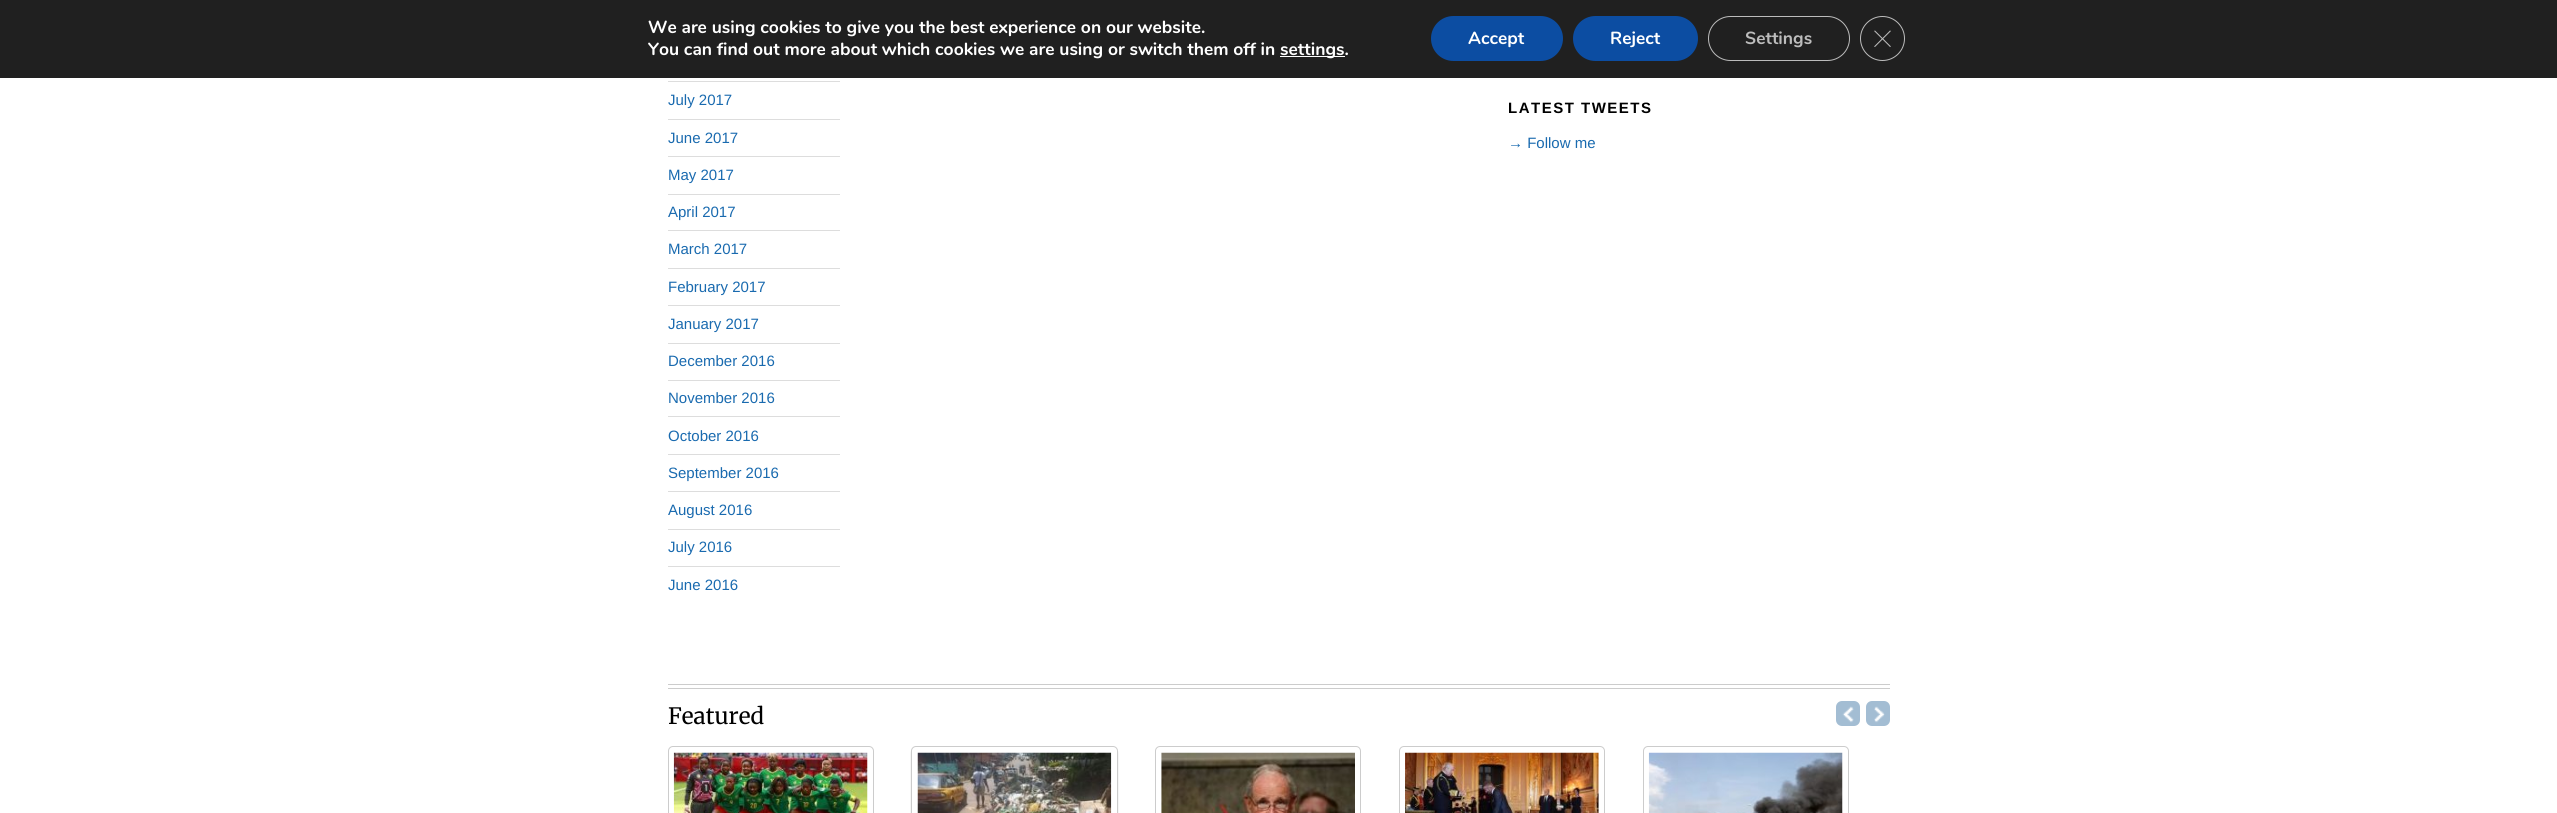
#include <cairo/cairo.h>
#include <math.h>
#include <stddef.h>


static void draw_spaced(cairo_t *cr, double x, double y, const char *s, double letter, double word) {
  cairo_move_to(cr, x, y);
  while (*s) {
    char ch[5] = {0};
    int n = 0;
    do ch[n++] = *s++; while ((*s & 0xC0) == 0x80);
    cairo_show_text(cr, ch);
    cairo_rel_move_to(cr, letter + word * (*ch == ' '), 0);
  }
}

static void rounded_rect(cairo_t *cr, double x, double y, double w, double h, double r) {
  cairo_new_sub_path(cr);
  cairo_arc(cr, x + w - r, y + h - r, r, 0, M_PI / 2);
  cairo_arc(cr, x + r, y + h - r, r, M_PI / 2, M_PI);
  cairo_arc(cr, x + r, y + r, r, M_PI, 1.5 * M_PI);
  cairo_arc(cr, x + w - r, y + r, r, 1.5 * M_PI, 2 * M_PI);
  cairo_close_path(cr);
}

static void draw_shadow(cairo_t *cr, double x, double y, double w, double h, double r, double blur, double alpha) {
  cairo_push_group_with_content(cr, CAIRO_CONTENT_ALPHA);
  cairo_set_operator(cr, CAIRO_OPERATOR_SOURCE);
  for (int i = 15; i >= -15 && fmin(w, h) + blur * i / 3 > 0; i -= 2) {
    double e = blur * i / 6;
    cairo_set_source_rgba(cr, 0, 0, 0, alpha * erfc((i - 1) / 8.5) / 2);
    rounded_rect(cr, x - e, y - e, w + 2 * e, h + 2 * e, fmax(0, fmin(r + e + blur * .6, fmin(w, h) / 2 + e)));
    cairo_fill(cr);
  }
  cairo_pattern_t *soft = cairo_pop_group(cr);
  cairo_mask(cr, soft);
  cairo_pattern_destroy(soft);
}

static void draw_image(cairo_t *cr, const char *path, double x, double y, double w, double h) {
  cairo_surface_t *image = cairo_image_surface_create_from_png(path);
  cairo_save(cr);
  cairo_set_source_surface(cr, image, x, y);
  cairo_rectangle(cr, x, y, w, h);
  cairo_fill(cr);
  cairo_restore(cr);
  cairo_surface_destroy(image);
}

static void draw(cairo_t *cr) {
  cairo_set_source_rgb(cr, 1, 1, 1);
  cairo_paint(cr);
  cairo_set_source_rgb(cr, 32 / 255.0, 32 / 255.0, 32 / 255.0);
  cairo_rectangle(cr, 0, 0, 2557, 78);
  cairo_fill(cr);
  cairo_set_source_rgb(cr, 1, 1, 1);
  cairo_rectangle(cr, 1280, 56, 65, 1);
  cairo_fill(cr);
  cairo_set_source_rgb(cr, 12 / 255.0, 77 / 255.0, 162 / 255.0);
  rounded_rect(cr, 1431, 16, 132, 45, 22.5);
  cairo_fill(cr);
  rounded_rect(cr, 1573, 16, 125, 45, 22.5);
  cairo_fill(cr);
  rounded_rect(cr, 1708.5, 16.5, 141, 44, 22);
  cairo_set_source_rgb(cr, 188 / 255.0, 188 / 255.0, 188 / 255.0);
  cairo_set_line_width(cr, 1);
  cairo_stroke(cr);
  cairo_arc(cr, 1882.5, 38.5, 22, 0, 2 * M_PI);
  cairo_stroke(cr);
  cairo_new_path(cr);
  cairo_move_to(cr, 1890, 30.5);
  cairo_line_to(cr, 1891, 31);
  cairo_line_to(cr, 1875, 47);
  cairo_line_to(cr, 1874, 46.5);
  cairo_close_path(cr);
  cairo_fill(cr);
  cairo_new_path(cr);
  cairo_move_to(cr, 1874, 31);
  cairo_line_to(cr, 1875, 30.5);
  cairo_line_to(cr, 1891, 46.5);
  cairo_line_to(cr, 1890, 47);
  cairo_close_path(cr);
  cairo_fill(cr);
  cairo_set_source_rgb(cr, 221 / 255.0, 221 / 255.0, 221 / 255.0);
  cairo_rectangle(cr, 668, 81, 172, 1);
  cairo_fill(cr);
  cairo_rectangle(cr, 668, 119, 172, 1);
  cairo_fill(cr);
  cairo_rectangle(cr, 668, 156, 172, 1);
  cairo_fill(cr);
  cairo_rectangle(cr, 668, 194, 172, 1);
  cairo_fill(cr);
  cairo_rectangle(cr, 668, 230, 172, 1);
  cairo_fill(cr);
  cairo_rectangle(cr, 668, 268, 172, 1);
  cairo_fill(cr);
  cairo_rectangle(cr, 668, 305, 172, 1);
  cairo_fill(cr);
  cairo_rectangle(cr, 668, 343, 172, 1);
  cairo_fill(cr);
  cairo_rectangle(cr, 668, 380, 172, 1);
  cairo_fill(cr);
  cairo_rectangle(cr, 668, 416, 172, 1);
  cairo_fill(cr);
  cairo_rectangle(cr, 668, 454, 172, 1);
  cairo_fill(cr);
  cairo_rectangle(cr, 668, 491, 172, 1);
  cairo_fill(cr);
  cairo_rectangle(cr, 668, 529, 172, 1);
  cairo_fill(cr);
  cairo_rectangle(cr, 668, 566, 172, 1);
  cairo_fill(cr);
  cairo_set_source_rgb(cr, 204 / 255.0, 204 / 255.0, 204 / 255.0);
  cairo_rectangle(cr, 668, 684, 1222, 1);
  cairo_fill(cr);
  cairo_rectangle(cr, 668, 688, 1222, 1);
  cairo_fill(cr);
  cairo_set_source_rgb(cr, 163 / 255.0, 189 / 255.0, 211 / 255.0);
  rounded_rect(cr, 1836, 701, 24, 25, 6);
  cairo_fill(cr);
  draw_image(cr, "images/1.png", 1842, 706, 12, 17);
  rounded_rect(cr, 1866, 701, 24, 25, 6);
  cairo_fill(cr);
  draw_image(cr, "images/2.png", 1874, 706, 11, 17);
  rounded_rect(cr, 668.5, 746.5, 205, 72, 4.5);
  cairo_set_source_rgb(cr, 204 / 255.0, 204 / 255.0, 204 / 255.0);
  cairo_stroke(cr);
  draw_image(cr, "images/3.png", 673, 752, 195, 61);
  cairo_set_source_rgb(cr, 0, 0, 0);
  draw_shadow(cr, 911, 748, 207, 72, 5, 0.5, 0.15);
  cairo_set_source_rgb(cr, 1, 1, 1);
  rounded_rect(cr, 911.5, 746.5, 206, 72, 4.5);
  cairo_fill_preserve(cr);
  cairo_set_source_rgb(cr, 204 / 255.0, 204 / 255.0, 204 / 255.0);
  cairo_stroke(cr);
  draw_image(cr, "images/4.png", 917, 752, 195, 61);
  rounded_rect(cr, 1155.5, 746.5, 205, 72, 4.5);
  cairo_stroke(cr);
  draw_image(cr, "images/5.png", 1161, 752, 194, 61);
  rounded_rect(cr, 1399.5, 746.5, 205, 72, 4.5);
  cairo_stroke(cr);
  draw_image(cr, "images/6.png", 1405, 752, 194, 61);
  rounded_rect(cr, 1643.5, 746.5, 205, 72, 4.5);
  cairo_stroke(cr);
  draw_image(cr, "images/7.png", 1648, 752, 195, 61);
  cairo_select_font_face(cr, "Nunito", CAIRO_FONT_SLANT_NORMAL, CAIRO_FONT_WEIGHT_BOLD);
  cairo_set_font_size(cr, 17.5);
  cairo_set_source_rgb(cr, 1, 1, 1);
  cairo_move_to(cr, 648, 33);
  cairo_show_text(cr, "We are using cookies to give you the best experience on our website.");
  cairo_move_to(cr, 648, 55);
  cairo_show_text(cr, "You can find out more about which cookies we are using or switch them off in");
  cairo_move_to(cr, 1280, 55);
  cairo_show_text(cr, "settings.");
  cairo_move_to(cr, 1468, 44);
  cairo_show_text(cr, "Accept");
  cairo_move_to(cr, 1610, 44);
  cairo_show_text(cr, "Reject");
  cairo_set_source_rgb(cr, 188 / 255.0, 188 / 255.0, 188 / 255.0);
  cairo_move_to(cr, 1745, 44);
  cairo_show_text(cr, "Settings");
  cairo_select_font_face(cr, "Liberation Sans", CAIRO_FONT_SLANT_NORMAL, CAIRO_FONT_WEIGHT_NORMAL);
  cairo_set_font_size(cr, 15);
  cairo_set_source_rgb(cr, 25 / 255.0, 106 / 255.0, 175 / 255.0);
  cairo_move_to(cr, 668, 105);
  cairo_show_text(cr, "July 2017");
  cairo_move_to(cr, 668, 143);
  cairo_show_text(cr, "June 2017");
  cairo_move_to(cr, 668, 180);
  cairo_show_text(cr, "May 2017");
  cairo_move_to(cr, 668, 217);
  cairo_show_text(cr, "April 2017");
  cairo_move_to(cr, 668, 254);
  cairo_show_text(cr, "March 2017");
  cairo_move_to(cr, 668, 292);
  cairo_show_text(cr, "February 2017");
  cairo_move_to(cr, 668, 329);
  cairo_show_text(cr, "January 2017");
  cairo_move_to(cr, 668, 366);
  cairo_show_text(cr, "December 2016");
  cairo_move_to(cr, 668, 403);
  cairo_show_text(cr, "November 2016");
  cairo_move_to(cr, 668, 441);
  cairo_show_text(cr, "October 2016");
  cairo_move_to(cr, 668, 478);
  cairo_show_text(cr, "September 2016");
  cairo_move_to(cr, 668, 515);
  cairo_show_text(cr, "August 2016");
  cairo_move_to(cr, 668, 552);
  cairo_show_text(cr, "July 2016");
  cairo_move_to(cr, 668, 590);
  cairo_show_text(cr, "June 2016");
  cairo_select_font_face(cr, "Liberation Sans", CAIRO_FONT_SLANT_NORMAL, CAIRO_FONT_WEIGHT_BOLD);
  cairo_set_source_rgb(cr, 0, 0, 0);
  draw_spaced(cr, 1508, 113, "LATEST TWEETS", 1.5, 0);
  cairo_select_font_face(cr, "Liberation Sans", CAIRO_FONT_SLANT_NORMAL, CAIRO_FONT_WEIGHT_NORMAL);
  cairo_set_source_rgb(cr, 25 / 255.0, 106 / 255.0, 175 / 255.0);
  cairo_move_to(cr, 1508, 148);
  cairo_show_text(cr, "→ Follow me");
  cairo_select_font_face(cr, "Merriweather Light", CAIRO_FONT_SLANT_NORMAL, CAIRO_FONT_WEIGHT_NORMAL);
  cairo_set_font_size(cr, 22.5);
  cairo_set_source_rgb(cr, 0, 0, 0);
  cairo_move_to(cr, 668, 724);
  cairo_show_text(cr, "Featured");
}

int main(void) {
  cairo_surface_t *surface = cairo_image_surface_create(CAIRO_FORMAT_RGB24, 2557, 813);
  cairo_t *cr = cairo_create(surface);
  cairo_font_options_t *options = cairo_font_options_create();
  cairo_font_options_set_hint_metrics(options, CAIRO_HINT_METRICS_OFF);
  cairo_font_options_set_hint_style(options, CAIRO_HINT_STYLE_NONE);
  cairo_set_font_options(cr, options);
  cairo_set_miter_limit(cr, 4);
  draw(cr);
  cairo_surface_write_to_png(surface, "out.png");
  cairo_font_options_destroy(options);
  cairo_destroy(cr);
  cairo_surface_destroy(surface);
  return 0;
}
